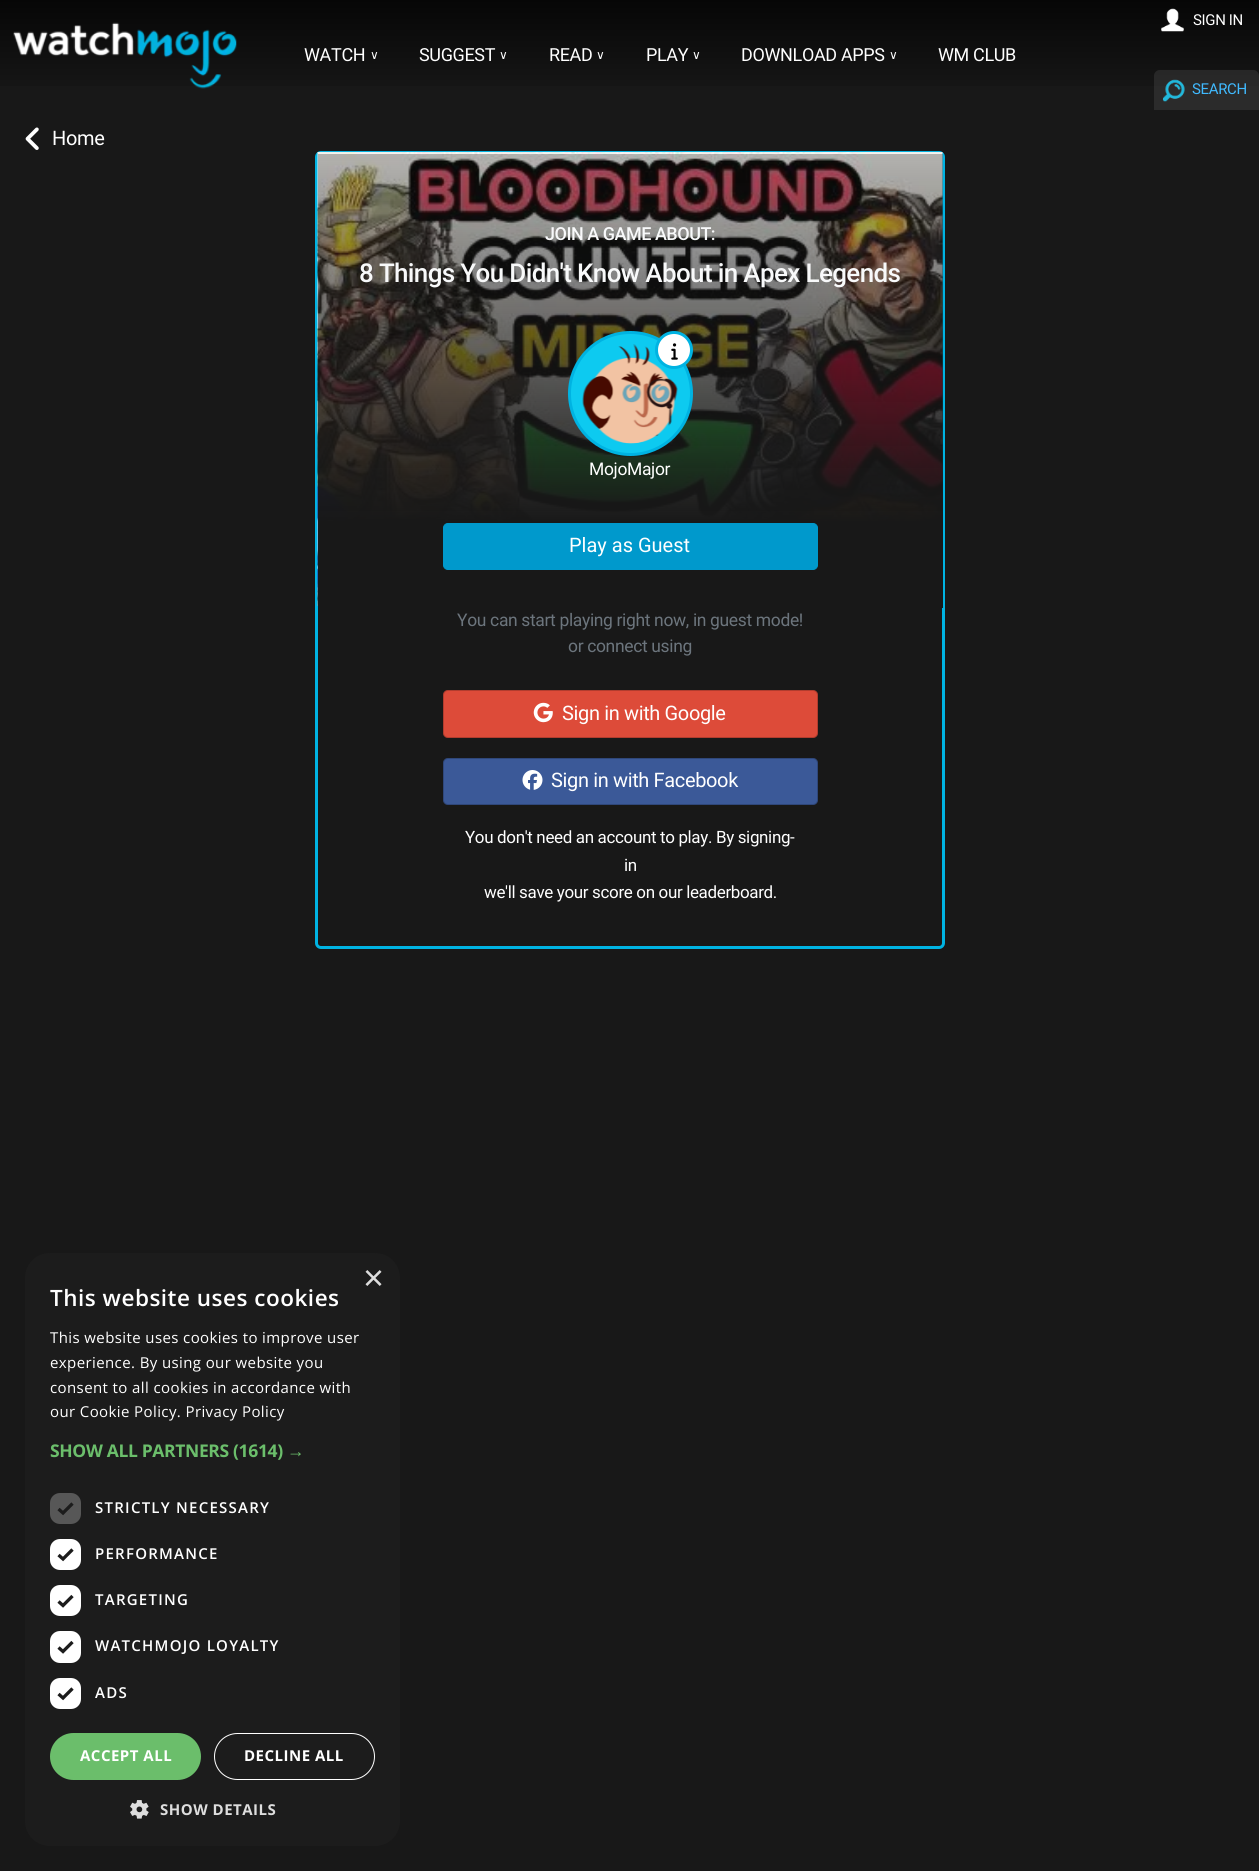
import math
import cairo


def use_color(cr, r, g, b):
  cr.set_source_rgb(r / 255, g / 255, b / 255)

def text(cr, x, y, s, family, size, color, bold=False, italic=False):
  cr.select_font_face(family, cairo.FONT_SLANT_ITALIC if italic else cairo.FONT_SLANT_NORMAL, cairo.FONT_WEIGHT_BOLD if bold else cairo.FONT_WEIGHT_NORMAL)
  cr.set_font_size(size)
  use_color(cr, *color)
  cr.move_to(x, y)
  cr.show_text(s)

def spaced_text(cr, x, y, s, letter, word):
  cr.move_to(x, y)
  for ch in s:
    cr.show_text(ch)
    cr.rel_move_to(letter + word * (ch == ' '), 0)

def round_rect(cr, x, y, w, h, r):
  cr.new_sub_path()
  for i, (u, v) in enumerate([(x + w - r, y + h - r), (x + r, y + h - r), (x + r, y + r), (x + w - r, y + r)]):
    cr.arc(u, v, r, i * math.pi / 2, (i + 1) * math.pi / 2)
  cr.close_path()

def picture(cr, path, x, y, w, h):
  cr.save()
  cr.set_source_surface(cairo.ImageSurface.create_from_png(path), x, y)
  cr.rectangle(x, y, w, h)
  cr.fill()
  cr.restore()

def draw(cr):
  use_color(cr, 24, 24, 24)
  cr.paint()
  gradient = cairo.LinearGradient(630, 0, 630, 111)
  gradient.add_color_stop_rgba(0, 0.024, 0.024, 0.024, 1)
  gradient.add_color_stop_rgba(1, 0.102, 0.102, 0.102, 1)
  cr.set_source(gradient)
  cr.rectangle(0, 0, 1259, 86)
  cr.fill()
  picture(cr, "img_01.png", 1161, 8, 23, 24)
  cr.set_source_rgba(0.608, 0.608, 0.608, 0.15)
  cr.new_path()
  cr.move_to(1160, 70)
  cr.line_to(1253, 70)
  cr.curve_to(1256.5, 70, 1259, 72.5, 1259, 76)
  cr.line_to(1259, 110)
  cr.line_to(1154, 110)
  cr.line_to(1154, 76)
  cr.curve_to(1154, 72.5, 1156.5, 70, 1160, 70)
  cr.close_path()
  cr.fill()
  picture(cr, "img_02.png", 1162, 79, 23, 23)
  picture(cr, "img_03.png", 25, 127, 14, 23)
  picture(cr, "img_04.png", 13, 22, 224, 67)
  round_rect(cr, 316.5, 152.5, 627, 795, 4.5)
  use_color(cr, 0, 179, 226)
  cr.set_line_width(3)
  cr.stroke()
  picture(cr, "img_05.png", 317, 152, 626, 454)
  gradient = cairo.LinearGradient(630, 608, 630, 154)
  gradient.add_color_stop_rgba(0.19, 0.094, 0.094, 0.094, 1)
  gradient.add_color_stop_rgba(1, 0.094, 0.094, 0.094, 0.3)
  cr.set_source(gradient)
  cr.rectangle(318, 154, 625, 454)
  cr.fill()
  use_color(cr, 13, 202, 240)
  cr.arc(630.5, 393.5, 61, 0, 2 * math.pi)
  cr.fill_preserve()
  use_color(cr, 0, 179, 226)
  cr.stroke()
  picture(cr, "img_06.png", 582, 344, 96, 100)
  use_color(cr, 255, 255, 255)
  cr.arc(674, 350, 17.5, 0, 2 * math.pi)
  cr.fill_preserve()
  use_color(cr, 0, 179, 226)
  cr.stroke()
  picture(cr, "img_07.png", 671, 343, 7, 17)
  use_color(cr, 0, 153, 204)
  round_rect(cr, 443.5, 523.5, 374, 46, 4.5)
  cr.fill_preserve()
  cr.set_line_width(1)
  cr.stroke()
  use_color(cr, 221, 75, 57)
  round_rect(cr, 443, 690, 375, 48, 5)
  cr.fill()
  round_rect(cr, 443.5, 690.5, 374, 47, 4.5)
  cr.set_source_rgba(0, 0, 0, 0.2)
  cr.stroke()
  picture(cr, "img_08.png", 533, 702, 20, 21)
  use_color(cr, 59, 89, 152)
  round_rect(cr, 443, 758, 375, 47, 5)
  cr.fill()
  round_rect(cr, 443.5, 758.5, 374, 46, 4.5)
  cr.set_source_rgba(0, 0, 0, 0.2)
  cr.stroke()
  picture(cr, "img_09.png", 522, 770, 21, 20)
  use_color(cr, 28, 28, 28)
  round_rect(cr, 25, 1253, 375, 593, 25)
  cr.fill()
  use_color(cr, 87, 87, 87)
  round_rect(cr, 50, 1493, 31, 31, 10)
  cr.fill()
  cr.new_path()
  cr.move_to(58.5, 1509)
  cr.line_to(63, 1513)
  cr.line_to(72.5, 1503.5)
  use_color(cr, 28, 28, 28)
  cr.set_line_width(3.3)
  cr.stroke()
  use_color(cr, 255, 255, 255)
  round_rect(cr, 51.5, 1540.5, 28, 28, 8.5)
  cr.fill_preserve()
  cr.set_line_width(3)
  cr.stroke()
  cr.new_path()
  cr.move_to(58.5, 1555)
  cr.line_to(63, 1559)
  cr.line_to(72.5, 1549.5)
  use_color(cr, 28, 28, 28)
  cr.set_line_width(3.3)
  cr.stroke()
  use_color(cr, 255, 255, 255)
  round_rect(cr, 51.5, 1586.5, 28, 28, 8.5)
  cr.fill_preserve()
  cr.set_line_width(3)
  cr.stroke()
  cr.new_path()
  cr.move_to(58.5, 1601.5)
  cr.line_to(63, 1605.5)
  cr.line_to(72.5, 1596)
  use_color(cr, 28, 28, 28)
  cr.set_line_width(3.3)
  cr.stroke()
  use_color(cr, 255, 255, 255)
  round_rect(cr, 51.5, 1632.5, 28, 29, 8.5)
  cr.fill_preserve()
  cr.set_line_width(3)
  cr.stroke()
  cr.new_path()
  cr.move_to(58.5, 1647.5)
  cr.line_to(63, 1651.5)
  cr.line_to(72.5, 1642)
  use_color(cr, 28, 28, 28)
  cr.set_line_width(3.3)
  cr.stroke()
  use_color(cr, 255, 255, 255)
  round_rect(cr, 51.5, 1679.5, 28, 28, 8.5)
  cr.fill_preserve()
  cr.set_line_width(3)
  cr.stroke()
  cr.new_path()
  cr.move_to(58.5, 1694)
  cr.line_to(63, 1698)
  cr.line_to(72.5, 1688.5)
  use_color(cr, 28, 28, 28)
  cr.set_line_width(3.3)
  cr.stroke()
  use_color(cr, 107, 190, 107)
  round_rect(cr, 50, 1733, 151, 47, 23.5)
  cr.fill()
  round_rect(cr, 214.5, 1733.5, 160, 46, 23)
  use_color(cr, 255, 255, 255)
  cr.set_line_width(1)
  cr.stroke()
  picture(cr, "img_10.png", 130, 1800, 19, 19)
  cr.select_font_face("Roboto")
  cr.set_font_size(18)
  spaced_text(cr, 304, 61, "WATCH", -0.35, 0)
  cr.select_font_face("DejaVu Sans")
  cr.set_font_size(12)
  spaced_text(cr, 370, 59, "∨", 8, 0)
  cr.select_font_face("Roboto")
  cr.set_font_size(18)
  spaced_text(cr, 419, 61, "SUGGEST", -0.35, 0)
  cr.select_font_face("DejaVu Sans")
  cr.set_font_size(12)
  spaced_text(cr, 499, 59, "∨", 8, 0)
  cr.select_font_face("Roboto")
  cr.set_font_size(18)
  spaced_text(cr, 549, 61, "READ", -0.35, 0)
  cr.select_font_face("DejaVu Sans")
  cr.set_font_size(12)
  spaced_text(cr, 596, 59, "∨", 8, 0)
  cr.select_font_face("Roboto")
  cr.set_font_size(18)
  spaced_text(cr, 646, 61, "PLAY", -0.35, 0)
  cr.select_font_face("DejaVu Sans")
  cr.set_font_size(12)
  spaced_text(cr, 692, 59, "∨", 8, 0)
  cr.select_font_face("Roboto")
  cr.set_font_size(18)
  spaced_text(cr, 741, 61, "DOWNLOAD APPS", -0.35, 0)
  cr.select_font_face("DejaVu Sans")
  cr.set_font_size(12)
  spaced_text(cr, 889, 59, "∨", 8, 0)
  cr.select_font_face("Roboto")
  cr.set_font_size(18)
  spaced_text(cr, 938, 61, "WM CLUB", -0.35, 0)
  cr.set_font_size(15)
  spaced_text(cr, 1193, 25, "SIGN IN", -0.35, 0)
  use_color(cr, 64, 186, 255)
  spaced_text(cr, 1192, 94, "SEARCH", -0.35, 0)
  cr.set_font_size(20)
  use_color(cr, 255, 255, 255)
  spaced_text(cr, 52, 145, "Home", -0.35, 0)
  cr.select_font_face("Roboto Medium")
  cr.set_font_size(18)
  use_color(cr, 248, 249, 250)
  spaced_text(cr, 545, 240, "JOIN A GAME ABOUT:", -0.5, 0)
  cr.set_font_size(26)
  spaced_text(cr, 359, 282, "8 Things You Didn't Know About in Apex Legends", -0.65, 0)
  cr.select_font_face("Roboto")
  cr.set_font_size(17.5)
  use_color(cr, 255, 255, 255)
  spaced_text(cr, 589, 475, "MojoMajor", -0.35, 0)
  text(cr, 569, 552, "Play as Guest", "Roboto", 20, (255, 255, 255))
  cr.set_font_size(17.5)
  use_color(cr, 108, 117, 125)
  spaced_text(cr, 457, 626, "You can start playing right now, in guest mode!", -0.35, 0)
  spaced_text(cr, 568, 652, "or connect using", -0.35, 0)
  cr.set_font_size(20)
  use_color(cr, 255, 255, 255)
  spaced_text(cr, 562, 720, "Sign in with Google", -0.35, 0)
  spaced_text(cr, 551, 787, "Sign in with Facebook", -0.35, 0)
  cr.set_font_size(17)
  spaced_text(cr, 465, 843, "You don't need an account to play. By signing-", -0.35, 0)
  spaced_text(cr, 624, 871, "in", -0.35, 0)
  spaced_text(cr, 484, 898, "we'll save your score on our leaderboard.", -0.35, 0)
  text(cr, 363, 1290, "×", "Liberation Sans", 36, (221, 221, 221))
  cr.select_font_face("Open Sans SemiBold")
  cr.set_font_size(22.5)
  use_color(cr, 255, 255, 255)
  spaced_text(cr, 50, 1306, "This website uses cookies", 0.5, 0)
  cr.select_font_face("Open Sans")
  cr.set_font_size(15)
  spaced_text(cr, 50, 1343, "This website uses cookies to improve user", 0.4, 0)
  spaced_text(cr, 50, 1368, "experience. By using our website you", 0.4, 0)
  spaced_text(cr, 50, 1393, "consent to all cookies in accordance with", 0.4, 0)
  spaced_text(cr, 50, 1417, "our Cookie Policy. Privacy Policy", 0.4, 0)
  cr.select_font_face("Open Sans", cairo.FONT_SLANT_NORMAL, cairo.FONT_WEIGHT_BOLD)
  cr.set_font_size(17.5)
  use_color(cr, 107, 190, 107)
  spaced_text(cr, 50, 1457, "SHOW ALL PARTNERS (1614)", -0.35, 0)
  cr.select_font_face("Liberation Sans", cairo.FONT_SLANT_NORMAL, cairo.FONT_WEIGHT_BOLD)
  spaced_text(cr, 287, 1457, "→", -0.35, 0)
  cr.select_font_face("Open Sans SemiBold")
  cr.set_font_size(15)
  use_color(cr, 255, 255, 255)
  spaced_text(cr, 95, 1513, "STRICTLY NECESSARY", 1.25, 0)
  spaced_text(cr, 95, 1559, "PERFORMANCE", 1.25, 0)
  spaced_text(cr, 95, 1605, "TARGETING", 1.25, 0)
  spaced_text(cr, 95, 1651, "WATCHMOJO LOYALTY", 1.25, 0)
  spaced_text(cr, 95, 1698, "ADS", 1.25, 0)
  cr.select_font_face("Open Sans", cairo.FONT_SLANT_NORMAL, cairo.FONT_WEIGHT_BOLD)
  spaced_text(cr, 80, 1761, "ACCEPT ALL", 0.5, 0)
  spaced_text(cr, 244, 1761, "DECLINE ALL", 0.5, 0)
  use_color(cr, 221, 221, 221)
  spaced_text(cr, 160, 1815, "SHOW DETAILS", 0.5, 0)


surface = cairo.ImageSurface(cairo.FORMAT_RGB24, 1259, 1871)
cr = cairo.Context(surface)
options = cairo.FontOptions()
options.set_hint_metrics(cairo.HINT_METRICS_OFF)
options.set_hint_style(cairo.HINT_STYLE_NONE)
cr.set_font_options(options)
cr.set_miter_limit(4)
draw(cr)
surface.write_to_png("out.png")
